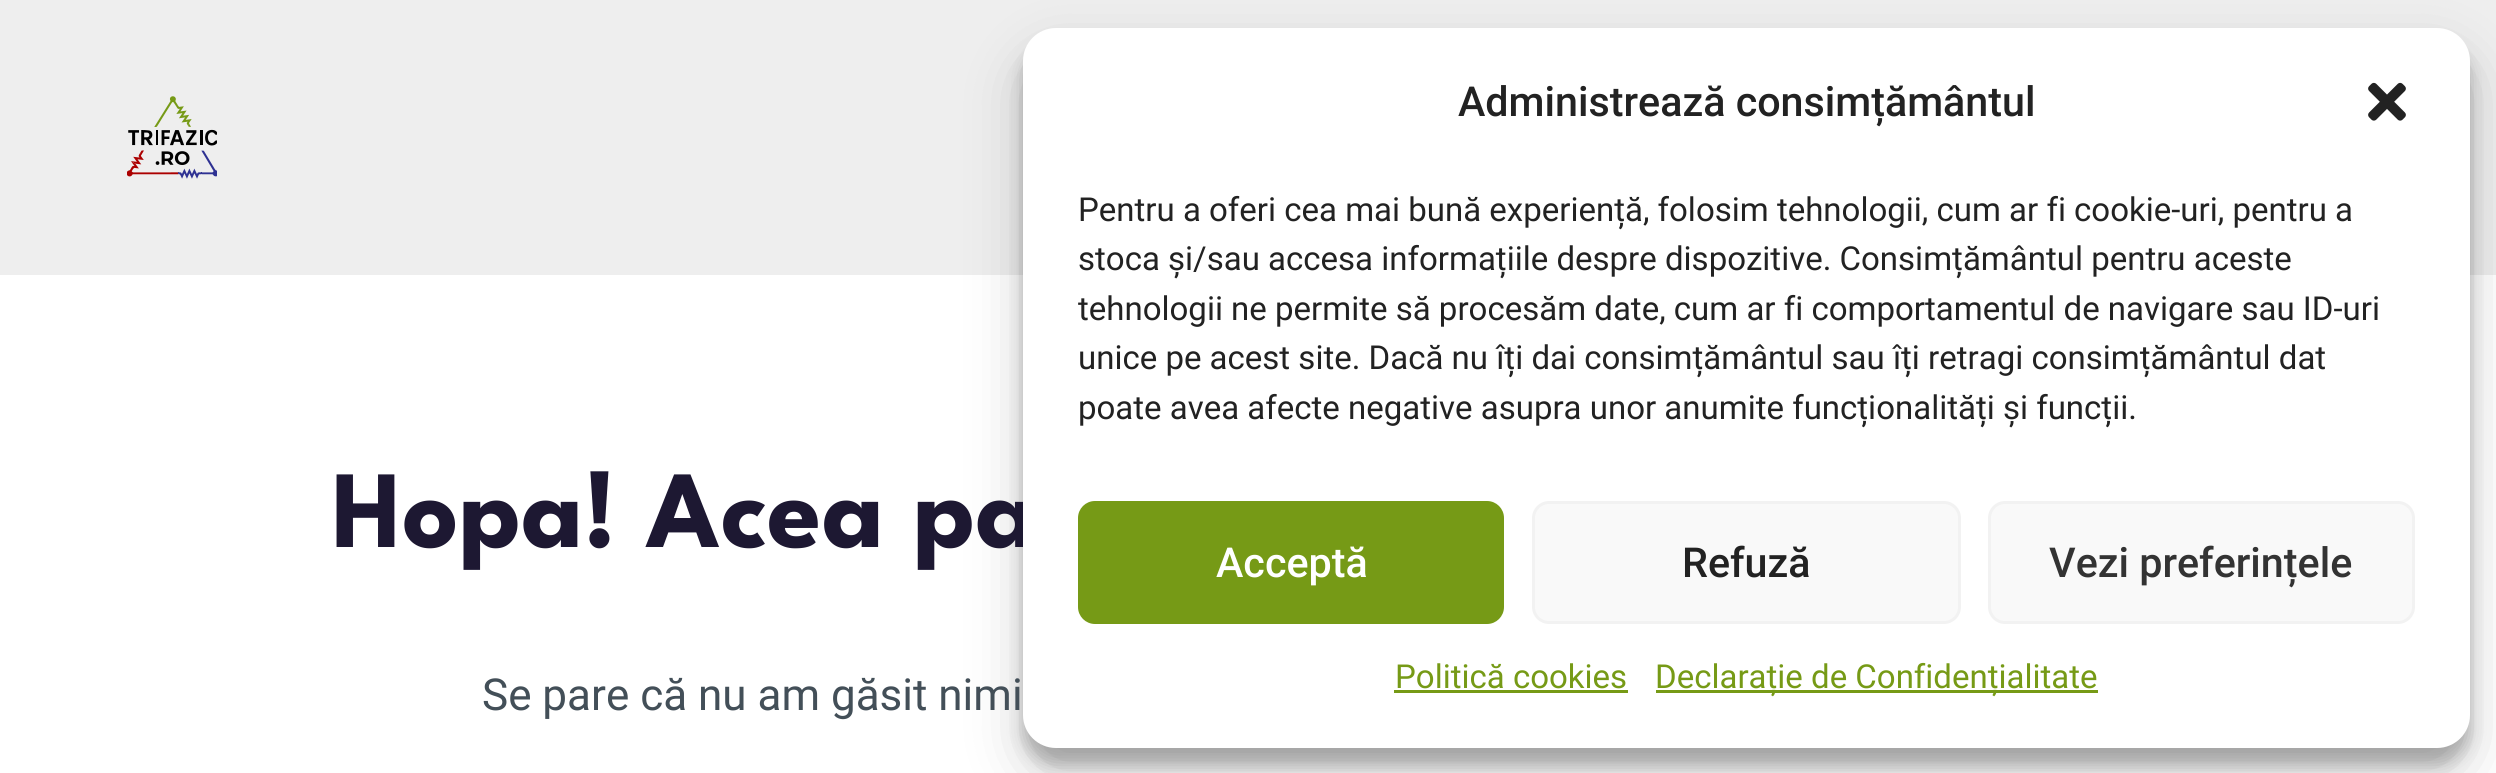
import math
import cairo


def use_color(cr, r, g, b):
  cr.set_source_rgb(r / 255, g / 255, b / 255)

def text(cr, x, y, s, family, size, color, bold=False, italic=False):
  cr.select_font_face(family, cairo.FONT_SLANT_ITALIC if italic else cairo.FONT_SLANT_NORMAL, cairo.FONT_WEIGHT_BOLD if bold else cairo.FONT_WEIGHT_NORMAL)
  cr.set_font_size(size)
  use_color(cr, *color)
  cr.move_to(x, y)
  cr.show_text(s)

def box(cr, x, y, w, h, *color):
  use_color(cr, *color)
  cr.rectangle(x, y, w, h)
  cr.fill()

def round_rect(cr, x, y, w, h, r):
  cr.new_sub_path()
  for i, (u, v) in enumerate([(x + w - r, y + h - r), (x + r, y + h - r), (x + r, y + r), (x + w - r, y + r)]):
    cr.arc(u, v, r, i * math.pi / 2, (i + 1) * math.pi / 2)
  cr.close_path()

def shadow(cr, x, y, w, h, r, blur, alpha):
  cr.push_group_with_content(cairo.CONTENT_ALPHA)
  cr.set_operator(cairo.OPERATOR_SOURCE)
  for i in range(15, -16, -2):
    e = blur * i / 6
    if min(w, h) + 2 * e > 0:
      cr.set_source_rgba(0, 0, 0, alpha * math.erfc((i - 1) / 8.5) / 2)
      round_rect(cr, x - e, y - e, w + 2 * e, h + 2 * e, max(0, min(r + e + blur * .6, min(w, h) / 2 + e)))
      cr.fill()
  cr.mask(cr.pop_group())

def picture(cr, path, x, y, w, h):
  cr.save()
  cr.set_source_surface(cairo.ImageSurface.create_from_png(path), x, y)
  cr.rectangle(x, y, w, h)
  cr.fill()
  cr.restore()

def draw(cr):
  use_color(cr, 255, 255, 255)
  cr.paint()
  box(cr, 0, 0, 2496, 275, 238, 238, 238)
  picture(cr, "img_01.png", 127, 96, 90, 83)
  use_color(cr, 0, 0, 0)
  shadow(cr, 1023, 44, 1447, 721, 33, 8, 0.23)
  shadow(cr, 1023, 55, 1447, 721, 33, 27.5, 0.19)
  text(cr, 332, 547, "Hopa! Acea pa", "League Spartan", 110, (29, 24, 50), bold=True)
  text(cr, 482, 710, "Se pare că nu am găsit nimi", "Roboto", 44, (67, 79, 88))
  use_color(cr, 255, 255, 255)
  round_rect(cr, 1023, 28, 1447, 720, 33)
  cr.fill()
  text(cr, 1458, 116, "Administrează consimțământul", "Roboto Medium", 41.25, (34, 34, 34))
  picture(cr, "img_02.png", 2368, 82, 38, 39)
  text(cr, 1078, 221, "Pentru a oferi cea mai bună experiență, folosim tehnologii, cum ar fi cookie-uri, pentru a", "Roboto", 33, (34, 34, 34))
  text(cr, 1078, 270, "stoca și/sau accesa informațiile despre dispozitive. Consimțământul pentru aceste", "Roboto", 33, (34, 34, 34))
  text(cr, 1078, 320, "tehnologii ne permite să procesăm date, cum ar fi comportamentul de navigare sau ID-uri", "Roboto", 33, (34, 34, 34))
  text(cr, 1078, 369, "unice pe acest site. Dacă nu îți dai consimțământul sau îți retragi consimțământul dat", "Roboto", 33, (34, 34, 34))
  text(cr, 1078, 419, "poate avea afecte negative asupra unor anumite funcționalități și funcții.", "Roboto", 33, (34, 34, 34))
  use_color(cr, 118, 154, 22)
  round_rect(cr, 1079.5, 502.5, 423, 120, 15.5)
  cr.fill_preserve()
  cr.set_line_width(3)
  cr.stroke()
  text(cr, 1216, 577, "Acceptă", "Roboto Medium", 41.25, (255, 255, 255))
  use_color(cr, 249, 249, 249)
  round_rect(cr, 1533.5, 502.5, 426, 120, 15.5)
  cr.fill_preserve()
  use_color(cr, 242, 242, 242)
  cr.stroke()
  text(cr, 1682, 577, "Refuză", "Roboto Medium", 41.25, (34, 34, 34))
  use_color(cr, 249, 249, 249)
  round_rect(cr, 1989.5, 502.5, 424, 120, 15.5)
  cr.fill_preserve()
  use_color(cr, 242, 242, 242)
  cr.stroke()
  text(cr, 2049, 577, "Vezi preferințele", "Roboto Medium", 41.25, (51, 51, 51))
  text(cr, 1395, 688, "Politică cookies", "Roboto", 33, (118, 154, 22))
  box(cr, 1394, 690, 234, 3, 118, 154, 22)
  box(cr, 1656, 690, 442, 3, 118, 154, 22)
  text(cr, 1655, 688, "Declarație de Confidențialitate", "Roboto", 33, (118, 154, 22))


surface = cairo.ImageSurface(cairo.FORMAT_RGB24, 2496, 773)
cr = cairo.Context(surface)
options = cairo.FontOptions()
options.set_hint_metrics(cairo.HINT_METRICS_OFF)
options.set_hint_style(cairo.HINT_STYLE_NONE)
cr.set_font_options(options)
cr.set_miter_limit(4)
draw(cr)
surface.write_to_png("out.png")
